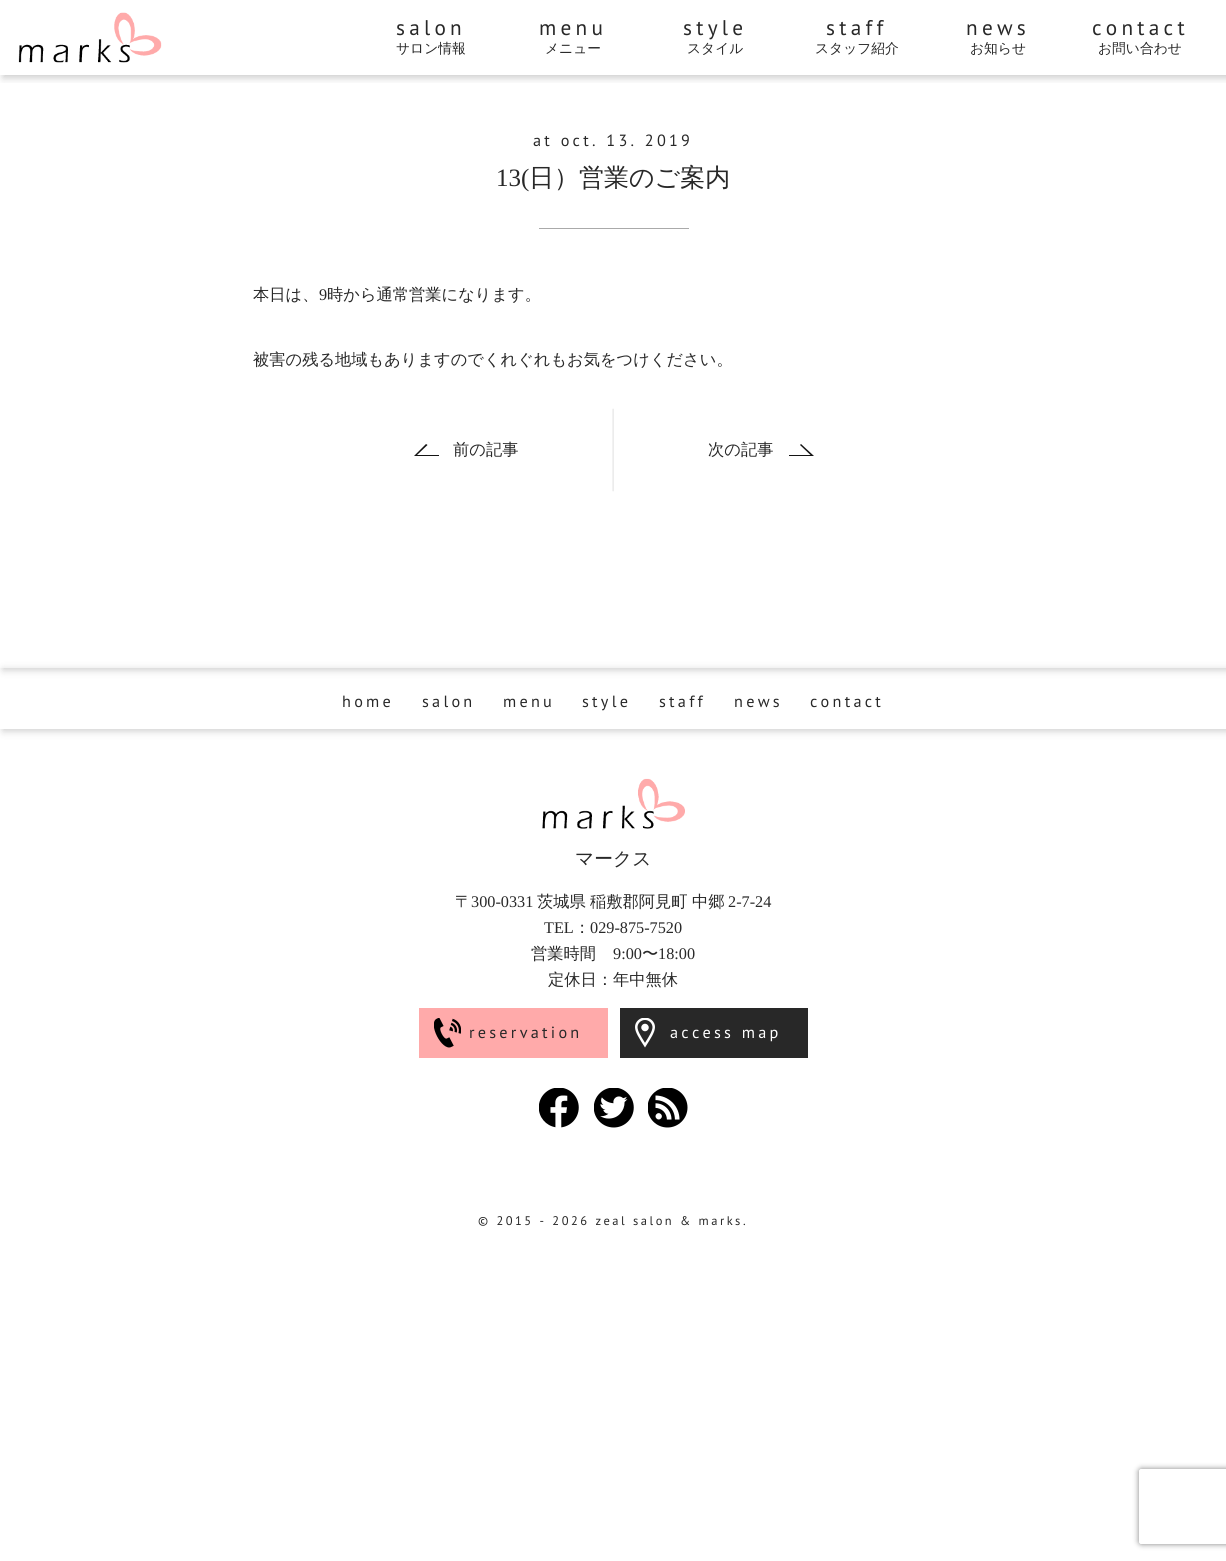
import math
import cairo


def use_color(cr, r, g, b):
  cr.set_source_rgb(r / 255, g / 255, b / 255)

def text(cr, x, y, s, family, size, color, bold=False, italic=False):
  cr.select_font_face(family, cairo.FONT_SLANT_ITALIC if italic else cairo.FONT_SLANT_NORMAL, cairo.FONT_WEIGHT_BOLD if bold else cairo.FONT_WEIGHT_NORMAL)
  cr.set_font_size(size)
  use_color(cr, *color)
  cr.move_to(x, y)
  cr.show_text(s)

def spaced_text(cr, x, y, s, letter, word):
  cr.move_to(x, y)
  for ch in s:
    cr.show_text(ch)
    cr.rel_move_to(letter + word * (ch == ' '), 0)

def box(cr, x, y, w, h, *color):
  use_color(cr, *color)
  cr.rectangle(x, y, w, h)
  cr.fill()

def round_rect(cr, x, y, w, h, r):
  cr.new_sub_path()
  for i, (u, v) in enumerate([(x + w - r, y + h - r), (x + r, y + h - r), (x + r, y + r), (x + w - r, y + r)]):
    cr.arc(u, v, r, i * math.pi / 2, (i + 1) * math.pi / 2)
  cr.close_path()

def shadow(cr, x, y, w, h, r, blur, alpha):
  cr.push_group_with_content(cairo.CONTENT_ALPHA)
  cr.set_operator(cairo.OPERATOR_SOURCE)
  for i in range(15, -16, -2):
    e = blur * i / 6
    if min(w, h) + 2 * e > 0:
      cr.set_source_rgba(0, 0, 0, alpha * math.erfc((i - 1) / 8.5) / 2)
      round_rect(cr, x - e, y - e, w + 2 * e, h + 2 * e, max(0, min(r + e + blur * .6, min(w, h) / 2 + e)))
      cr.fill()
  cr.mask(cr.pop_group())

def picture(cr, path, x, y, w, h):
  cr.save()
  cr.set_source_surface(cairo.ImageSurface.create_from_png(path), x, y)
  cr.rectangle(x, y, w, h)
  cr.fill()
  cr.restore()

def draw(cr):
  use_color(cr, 255, 255, 255)
  cr.paint()
  cr.save()
  cr.rectangle(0, 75, 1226, 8)
  cr.clip()
  use_color(cr, 0, 0, 0)
  shadow(cr, 3, 3, 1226, 75, 0, 4, 0.2)
  cr.restore()
  cr.save()
  cr.set_fill_rule(cairo.FILL_RULE_EVEN_ODD)
  cr.new_path()
  cr.move_to(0, 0)
  cr.line_to(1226, 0)
  cr.line_to(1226, 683)
  cr.line_to(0, 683)
  cr.close_path()
  cr.move_to(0, 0)
  cr.line_to(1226, 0)
  cr.line_to(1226, 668)
  cr.line_to(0, 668)
  cr.close_path()
  cr.clip()
  use_color(cr, 0, 0, 0)
  shadow(cr, 3, 3, 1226, 667, 0, 4, 0.2)
  cr.restore()
  picture(cr, "img_01.png", 18, 12, 144, 51)
  box(cr, 539, 228, 150, 1, 170, 170, 170)
  picture(cr, "img_02.png", 612, 408, 2, 84)
  use_color(cr, 20, 20, 20)
  cr.new_path()
  cr.move_to(426, 444)
  cr.line_to(427.5, 445)
  cr.line_to(417, 455)
  cr.line_to(439, 455)
  cr.line_to(439, 456)
  cr.line_to(414, 456)
  cr.close_path()
  cr.fill()
  cr.new_path()
  cr.move_to(801, 444)
  cr.line_to(800, 445)
  cr.line_to(810.5, 455)
  cr.line_to(789, 455)
  cr.line_to(789, 456)
  cr.line_to(814, 456)
  cr.close_path()
  cr.fill()
  cr.save()
  cr.set_fill_rule(cairo.FILL_RULE_EVEN_ODD)
  cr.new_path()
  cr.move_to(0, 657)
  cr.line_to(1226, 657)
  cr.line_to(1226, 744)
  cr.line_to(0, 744)
  cr.close_path()
  cr.move_to(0, 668)
  cr.line_to(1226, 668)
  cr.line_to(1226, 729)
  cr.line_to(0, 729)
  cr.close_path()
  cr.clip()
  use_color(cr, 0, 0, 0)
  shadow(cr, 3, 670, 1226, 61, 0, 4, 0.2)
  cr.restore()
  picture(cr, "img_03.png", 542, 778, 143, 51)
  box(cr, 419, 1008, 189, 50, 255, 170, 170)
  picture(cr, "img_04.png", 434, 1018, 27, 30)
  box(cr, 620, 1008, 188, 50, 40, 40, 40)
  picture(cr, "img_05.png", 635, 1018, 20, 30)
  picture(cr, "img_06.png", 539, 1088, 40, 40)
  picture(cr, "img_07.png", 594, 1088, 40, 40)
  picture(cr, "img_08.png", 648, 1088, 40, 40)
  cr.save()
  cr.set_fill_rule(cairo.FILL_RULE_EVEN_ODD)
  cr.new_path()
  cr.move_to(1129, 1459)
  cr.line_to(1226, 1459)
  cr.line_to(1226, 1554)
  cr.line_to(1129, 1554)
  cr.close_path()
  cr.move_to(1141.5, 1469)
  cr.line_to(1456.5, 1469)
  cr.curve_to(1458, 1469, 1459, 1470, 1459, 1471.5)
  cr.line_to(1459, 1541.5)
  cr.curve_to(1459, 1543, 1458, 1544, 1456.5, 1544)
  cr.line_to(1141.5, 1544)
  cr.curve_to(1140, 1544, 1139, 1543, 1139, 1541.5)
  cr.line_to(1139, 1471.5)
  cr.curve_to(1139, 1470, 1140, 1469, 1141.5, 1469)
  cr.close_path()
  cr.clip()
  use_color(cr, 128, 128, 128)
  shadow(cr, 1139, 1469, 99, 75, 2.5, 3, 1)
  cr.restore()
  cr.select_font_face("PT Sans")
  cr.set_font_size(21.25)
  spaced_text(cr, 396, 35, "salon", 4.25, 0)
  text(cr, 396, 53, "サロン情報", "WenQuanYi Zen Hei Medium", 13.75, (40, 40, 40))
  cr.select_font_face("PT Sans")
  cr.set_font_size(21.25)
  spaced_text(cr, 539, 35, "menu", 4.25, 0)
  text(cr, 545, 53, "メニュー", "WenQuanYi Zen Hei Medium", 13.75, (40, 40, 40))
  cr.select_font_face("PT Sans")
  cr.set_font_size(21.25)
  spaced_text(cr, 683, 35, "style", 4.25, 0)
  text(cr, 687, 53, "スタイル", "WenQuanYi Zen Hei Medium", 13.75, (40, 40, 40))
  cr.select_font_face("PT Sans")
  cr.set_font_size(21.25)
  spaced_text(cr, 826, 35, "staff", 4.25, 0)
  text(cr, 815, 53, "スタッフ紹介", "WenQuanYi Zen Hei Medium", 13.75, (40, 40, 40))
  cr.select_font_face("PT Sans")
  cr.set_font_size(21.25)
  spaced_text(cr, 966, 35, "news", 4.25, 0)
  text(cr, 970, 53, "お知らせ", "WenQuanYi Zen Hei Medium", 13.75, (40, 40, 40))
  cr.select_font_face("PT Sans")
  cr.set_font_size(21.25)
  spaced_text(cr, 1092, 35, "contact", 4.25, 0)
  text(cr, 1098, 53, "お問い合わせ", "WenQuanYi Zen Hei Medium", 13.75, (40, 40, 40))
  cr.select_font_face("PT Sans")
  cr.set_font_size(16.25)
  spaced_text(cr, 533, 146, "at oct. 13. 2019", 3.25, 0)
  text(cr, 496, 186, "13(", "Liberation Serif", 25, (40, 40, 40))
  text(cr, 529, 186, "日）営業のご案内", "WenQuanYi Zen Hei Medium", 25, (40, 40, 40))
  text(cr, 253, 300, "本日は、", "WenQuanYi Zen Hei Medium", 16.25, (40, 40, 40))
  text(cr, 319, 300, "9", "Liberation Serif", 16.25, (40, 40, 40))
  text(cr, 327, 300, "時から通常営業になります。", "WenQuanYi Zen Hei Medium", 16.25, (40, 40, 40))
  text(cr, 253, 365, "被害の残る地域もありますのでくれぐれもお気をつけください。", "WenQuanYi Zen Hei Medium", 16.25, (40, 40, 40))
  text(cr, 453, 455, "前の記事", "WenQuanYi Zen Hei Medium", 16.25, (40, 40, 40))
  text(cr, 708, 455, "次の記事", "WenQuanYi Zen Hei Medium", 16.25, (40, 40, 40))
  cr.select_font_face("PT Sans")
  spaced_text(cr, 342, 707, "home", 3.25, 0)
  spaced_text(cr, 422, 707, "salon", 3.25, 0)
  spaced_text(cr, 503, 707, "menu", 3.25, 0)
  spaced_text(cr, 582, 707, "style", 3.25, 0)
  spaced_text(cr, 659, 707, "staff", 3.25, 0)
  spaced_text(cr, 734, 707, "news", 3.25, 0)
  spaced_text(cr, 810, 707, "contact", 3.25, 0)
  text(cr, 575, 865, "マークス", "WenQuanYi Zen Hei Medium", 18.75, (40, 40, 40))
  text(cr, 455, 907, "〒", "WenQuanYi Zen Hei Medium", 16.25, (40, 40, 40))
  text(cr, 471, 907, "300-0331", "Liberation Serif", 16.25, (40, 40, 40))
  text(cr, 537, 907, "茨城県", "WenQuanYi Zen Hei Medium", 16.25, (40, 40, 40))
  text(cr, 590, 907, "稲敷郡阿見町", "WenQuanYi Zen Hei Medium", 16.25, (40, 40, 40))
  text(cr, 692, 907, "中郷", "WenQuanYi Zen Hei Medium", 16.25, (40, 40, 40))
  text(cr, 728, 907, "2-7-24", "Liberation Serif", 16.25, (40, 40, 40))
  text(cr, 544, 933, "TEL", "Liberation Serif", 16.25, (40, 40, 40))
  text(cr, 574, 933, "：", "WenQuanYi Zen Hei Medium", 16.25, (40, 40, 40))
  text(cr, 590, 933, "029-875-7520", "Liberation Serif", 16.25, (40, 40, 40))
  text(cr, 531, 959, "営業時間", "WenQuanYi Zen Hei Medium", 16.25, (40, 40, 40))
  text(cr, 613, 959, "9:00", "Liberation Serif", 16.25, (40, 40, 40))
  text(cr, 642, 959, "〜", "WenQuanYi Zen Hei Medium", 16.25, (40, 40, 40))
  text(cr, 658, 959, "18:00", "Liberation Serif", 16.25, (40, 40, 40))
  text(cr, 548, 985, "定休日：年中無休", "WenQuanYi Zen Hei Medium", 16.25, (40, 40, 40))
  cr.select_font_face("PT Sans")
  spaced_text(cr, 469, 1038, "reservation", 3.25, 0)
  use_color(cr, 255, 255, 255)
  spaced_text(cr, 670, 1038, "access map", 3.25, 0)
  cr.set_font_size(12.5)
  use_color(cr, 40, 40, 40)
  spaced_text(cr, 478, 1225, "© 2015 - 2026 zeal salon & marks.", 2.5, 0)


surface = cairo.ImageSurface(cairo.FORMAT_RGB24, 1226, 1561)
cr = cairo.Context(surface)
options = cairo.FontOptions()
options.set_hint_metrics(cairo.HINT_METRICS_OFF)
options.set_hint_style(cairo.HINT_STYLE_NONE)
cr.set_font_options(options)
cr.set_miter_limit(4)
draw(cr)
surface.write_to_png("out.png")
